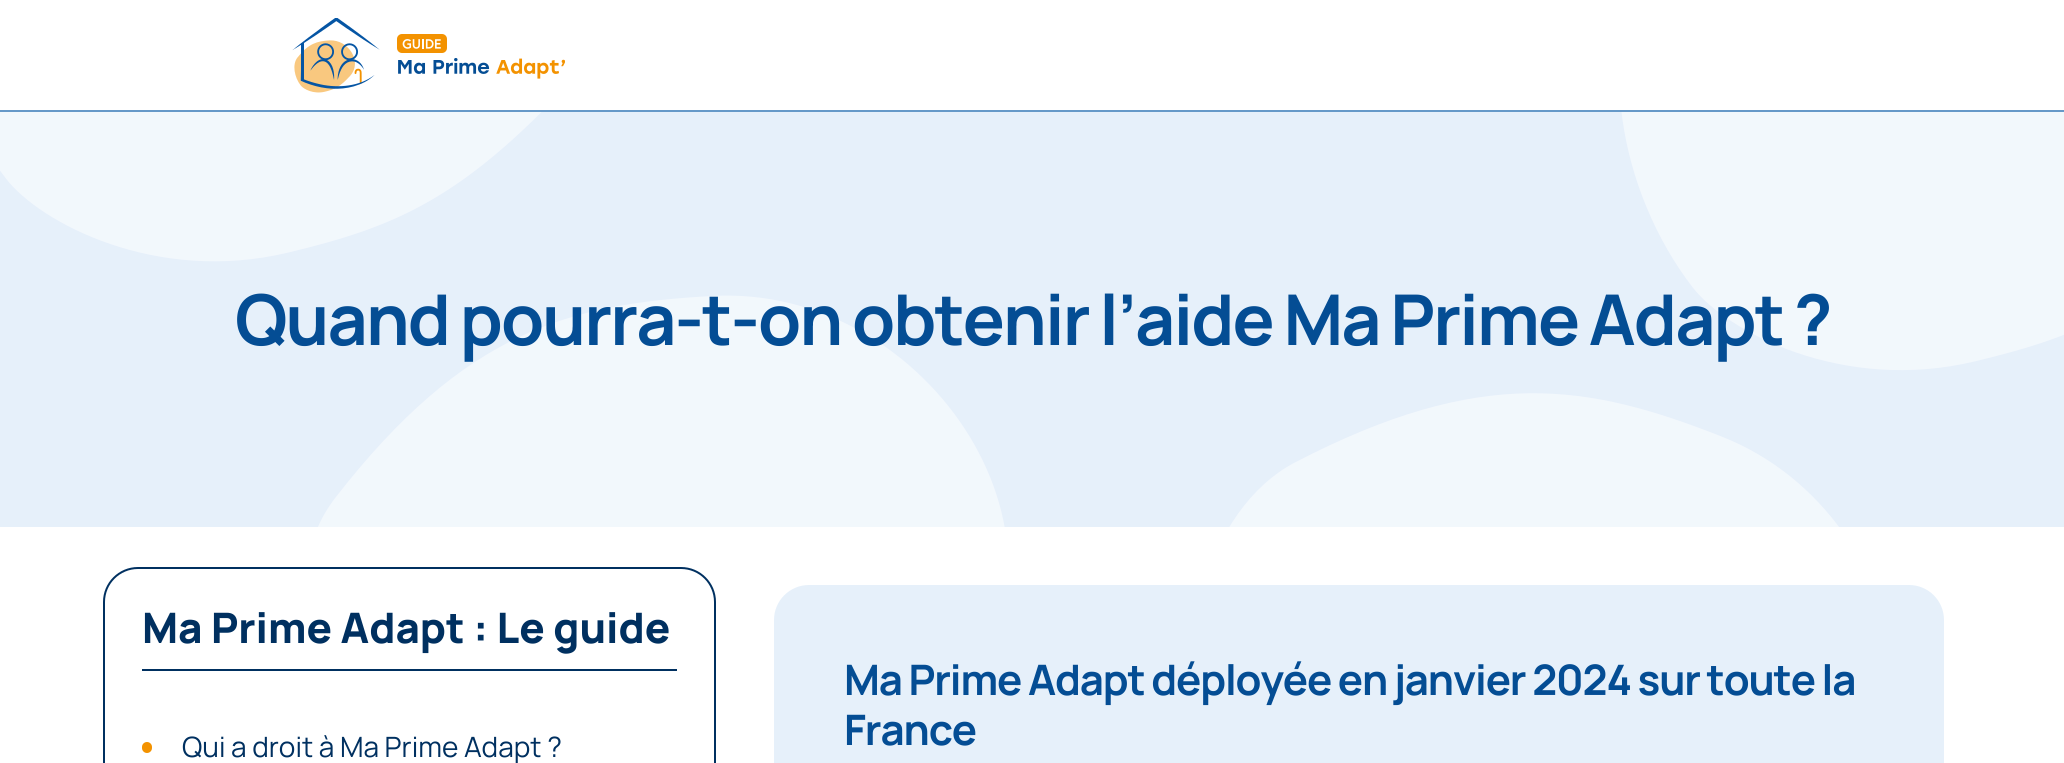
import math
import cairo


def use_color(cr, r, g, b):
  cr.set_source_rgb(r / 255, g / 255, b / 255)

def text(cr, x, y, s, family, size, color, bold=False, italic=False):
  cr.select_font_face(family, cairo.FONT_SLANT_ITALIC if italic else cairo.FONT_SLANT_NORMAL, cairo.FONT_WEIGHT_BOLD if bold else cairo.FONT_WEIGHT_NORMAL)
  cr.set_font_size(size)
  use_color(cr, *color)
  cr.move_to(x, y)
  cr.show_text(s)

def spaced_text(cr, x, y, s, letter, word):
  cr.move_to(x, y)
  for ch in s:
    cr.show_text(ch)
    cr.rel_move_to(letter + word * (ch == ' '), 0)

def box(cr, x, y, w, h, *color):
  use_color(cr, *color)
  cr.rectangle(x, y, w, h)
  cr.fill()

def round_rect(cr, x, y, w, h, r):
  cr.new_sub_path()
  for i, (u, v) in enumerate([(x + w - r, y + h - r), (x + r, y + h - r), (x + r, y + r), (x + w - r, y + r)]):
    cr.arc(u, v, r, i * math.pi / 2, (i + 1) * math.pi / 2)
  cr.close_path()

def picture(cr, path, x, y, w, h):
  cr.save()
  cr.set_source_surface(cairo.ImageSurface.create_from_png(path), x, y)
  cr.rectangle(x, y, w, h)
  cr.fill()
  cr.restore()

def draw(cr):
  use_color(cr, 255, 255, 255)
  cr.paint()
  picture(cr, "img_01.png", 292, 18, 273, 75)
  box(cr, 0, 110, 2064, 2, 102, 153, 200)
  picture(cr, "img_02.png", 0, 112, 2064, 415)
  round_rect(cr, 104, 568, 611, 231, 34)
  use_color(cr, 0, 48, 96)
  cr.stroke()
  box(cr, 142, 669, 535, 2, 0, 48, 96)
  use_color(cr, 243, 146, 0)
  round_rect(cr, 142, 742, 10, 11, 5)
  cr.fill()
  use_color(cr, 230, 240, 250)
  round_rect(cr, 774, 585, 1170, 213, 35)
  cr.fill()
  cr.select_font_face("Manrope", cairo.FONT_SLANT_NORMAL, cairo.FONT_WEIGHT_BOLD)
  cr.set_font_size(70)
  use_color(cr, 4, 77, 148)
  spaced_text(cr, 235, 345, "Quand pourra-t-on obtenir l’aide Ma Prime Adapt ?", -1.9, -1.5)
  text(cr, 142, 643, "Ma Prime Adapt : Le guide", "Manrope ExtraBold", 42, (0, 48, 96))
  text(cr, 182, 757, "Qui a droit à Ma Prime Adapt ?", "Manrope", 28, (0, 48, 96))
  cr.select_font_face("Manrope", cairo.FONT_SLANT_NORMAL, cairo.FONT_WEIGHT_BOLD)
  cr.set_font_size(42)
  use_color(cr, 4, 77, 148)
  spaced_text(cr, 844, 695, "Ma Prime Adapt déployée en janvier 2024 sur toute la", -1.13, -0.6)
  spaced_text(cr, 844, 745, "France", -1.13, 0)


surface = cairo.ImageSurface(cairo.FORMAT_RGB24, 2064, 763)
cr = cairo.Context(surface)
options = cairo.FontOptions()
options.set_hint_metrics(cairo.HINT_METRICS_OFF)
options.set_hint_style(cairo.HINT_STYLE_NONE)
cr.set_font_options(options)
cr.set_miter_limit(4)
draw(cr)
surface.write_to_png("out.png")
